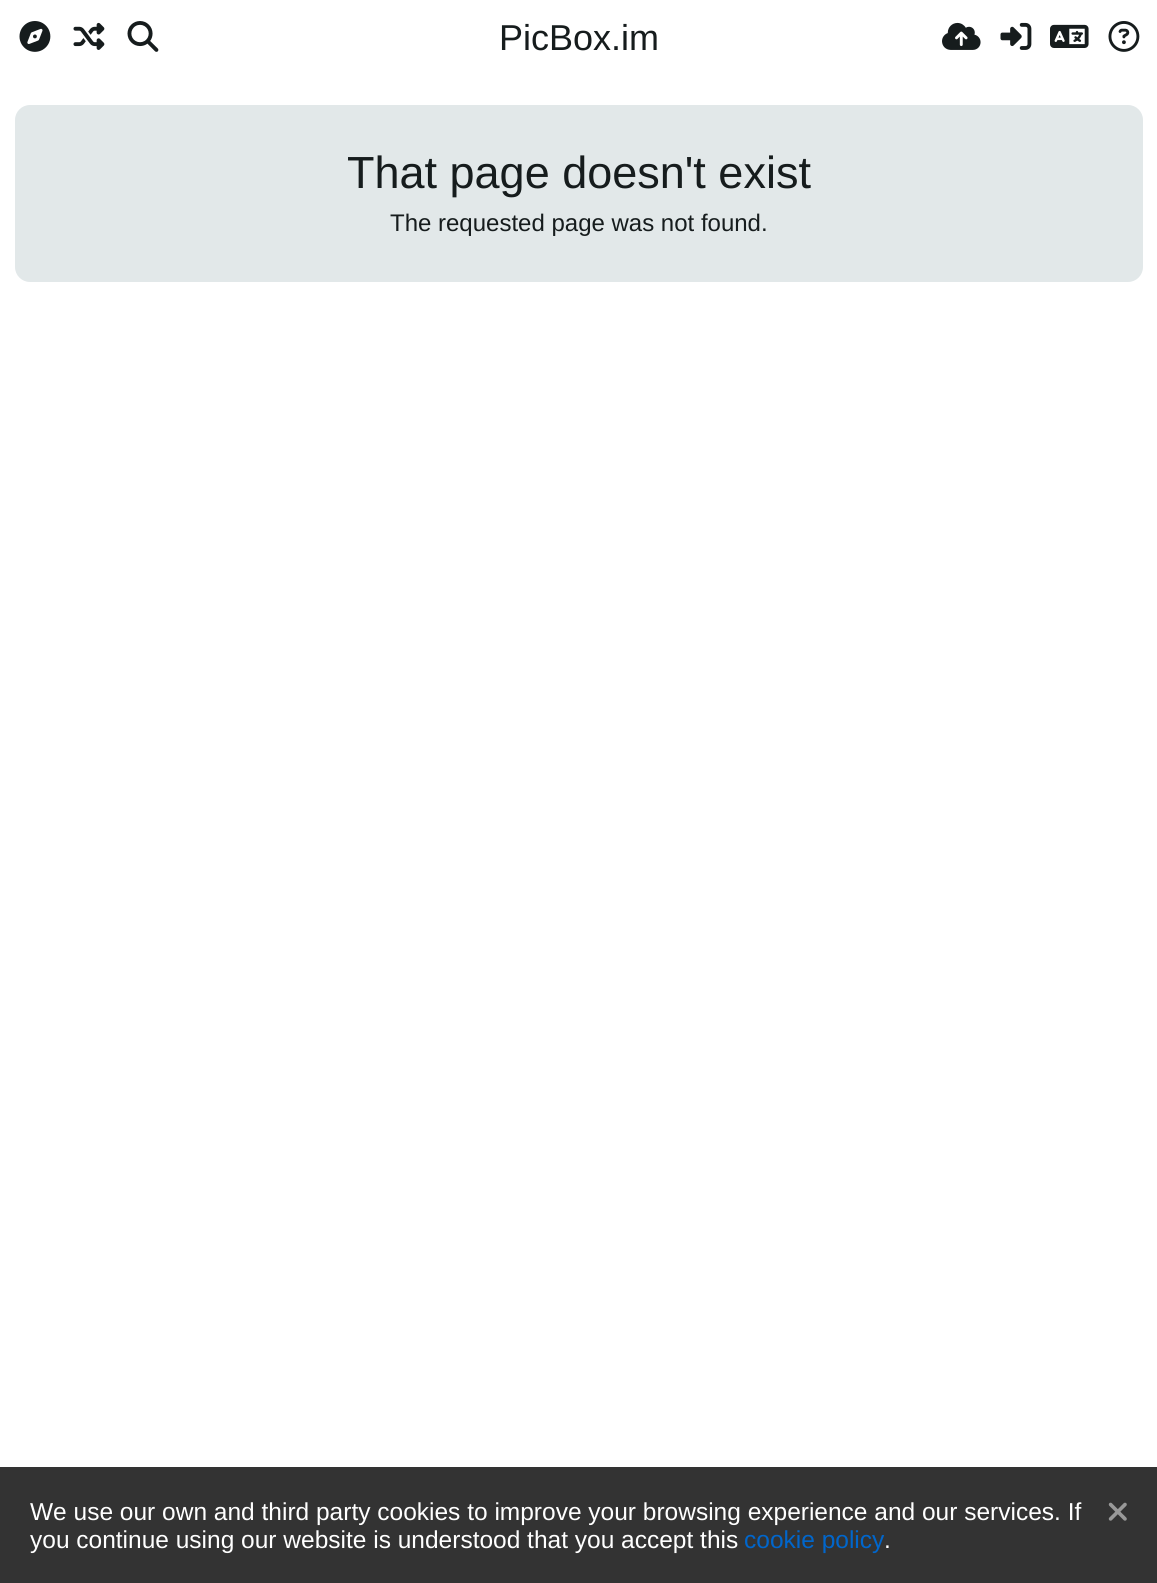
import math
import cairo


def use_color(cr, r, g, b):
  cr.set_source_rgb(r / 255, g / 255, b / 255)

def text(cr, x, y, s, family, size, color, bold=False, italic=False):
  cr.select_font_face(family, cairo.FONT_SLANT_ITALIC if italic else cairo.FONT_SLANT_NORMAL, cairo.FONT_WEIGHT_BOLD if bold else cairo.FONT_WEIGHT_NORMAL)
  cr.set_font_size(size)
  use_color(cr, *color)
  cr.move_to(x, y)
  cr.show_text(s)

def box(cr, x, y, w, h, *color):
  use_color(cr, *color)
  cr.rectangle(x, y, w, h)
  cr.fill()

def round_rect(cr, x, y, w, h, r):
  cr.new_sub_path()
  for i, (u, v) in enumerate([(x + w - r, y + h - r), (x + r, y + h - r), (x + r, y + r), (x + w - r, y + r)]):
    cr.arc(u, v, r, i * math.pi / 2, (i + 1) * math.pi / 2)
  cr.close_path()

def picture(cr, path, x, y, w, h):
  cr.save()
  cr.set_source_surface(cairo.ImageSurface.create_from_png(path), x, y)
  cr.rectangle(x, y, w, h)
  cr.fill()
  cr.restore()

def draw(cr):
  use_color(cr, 255, 255, 255)
  cr.paint()
  picture(cr, "img_01.png", 19, 21, 32, 31)
  picture(cr, "img_02.png", 73, 22, 32, 28)
  picture(cr, "img_03.png", 127, 21, 32, 31)
  picture(cr, "img_04.png", 942, 22, 39, 28)
  picture(cr, "img_05.png", 1000, 22, 32, 28)
  picture(cr, "img_06.png", 1050, 24, 39, 24)
  picture(cr, "img_07.png", 1108, 21, 32, 31)
  use_color(cr, 226, 232, 233)
  round_rect(cr, 15, 105, 1128, 177, 15)
  cr.fill()
  box(cr, 0, 1467, 1157, 116, 51, 51, 51)
  picture(cr, "img_08.png", 1108, 1502, 19, 19)
  text(cr, 499, 50, "PicBox.im", "Liberation Sans", 36, (22, 28, 29))
  text(cr, 347, 188, "That page doesn't exist", "Liberation Sans", 45, (22, 28, 29))
  text(cr, 390, 231, "The requested page was not found.", "Liberation Sans", 24, (22, 28, 29))
  text(cr, 30, 1520, "We use our own and third party cookies to improve your browsing experience and our services. If", "Liberation Sans", 24.5, (255, 255, 255))
  text(cr, 30, 1548, "you continue using our website is understood that you accept this", "Liberation Sans", 24.5, (255, 255, 255))
  text(cr, 744, 1548, "cookie policy", "Liberation Sans", 24.5, (0, 102, 204))
  text(cr, 884, 1548, ".", "Liberation Sans", 24.5, (255, 255, 255))


surface = cairo.ImageSurface(cairo.FORMAT_RGB24, 1157, 1583)
cr = cairo.Context(surface)
options = cairo.FontOptions()
options.set_hint_metrics(cairo.HINT_METRICS_OFF)
options.set_hint_style(cairo.HINT_STYLE_NONE)
cr.set_font_options(options)
cr.set_miter_limit(4)
draw(cr)
surface.write_to_png("out.png")
